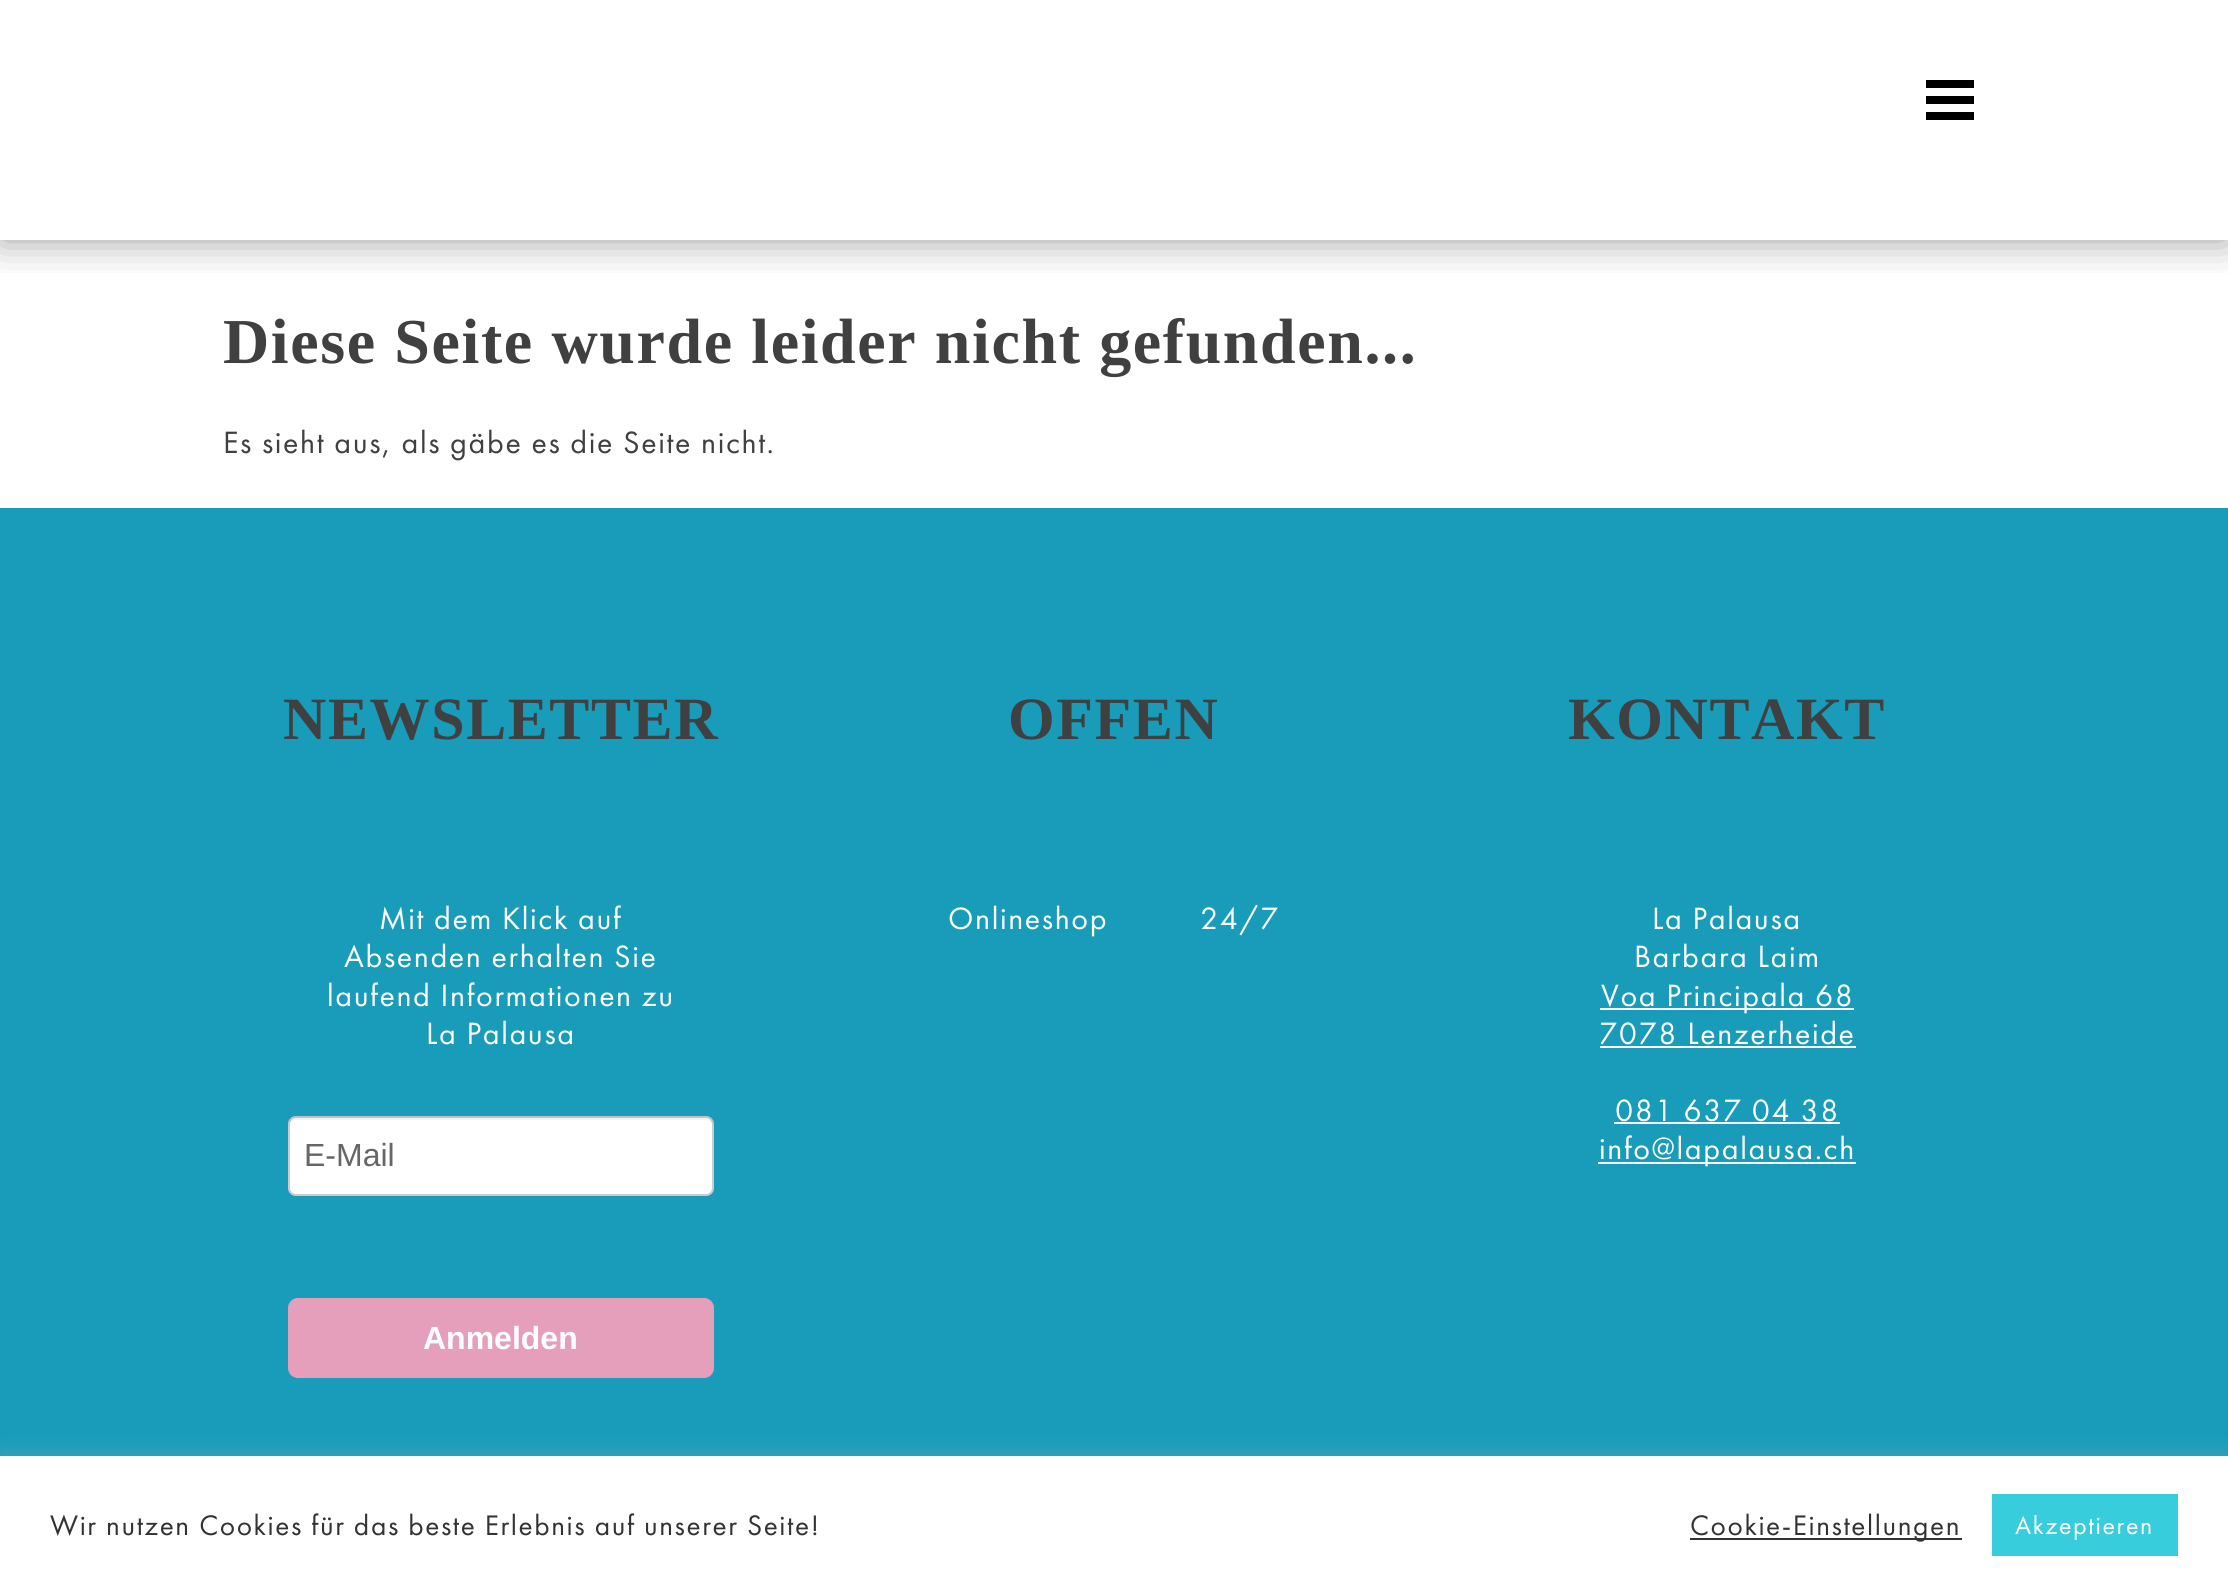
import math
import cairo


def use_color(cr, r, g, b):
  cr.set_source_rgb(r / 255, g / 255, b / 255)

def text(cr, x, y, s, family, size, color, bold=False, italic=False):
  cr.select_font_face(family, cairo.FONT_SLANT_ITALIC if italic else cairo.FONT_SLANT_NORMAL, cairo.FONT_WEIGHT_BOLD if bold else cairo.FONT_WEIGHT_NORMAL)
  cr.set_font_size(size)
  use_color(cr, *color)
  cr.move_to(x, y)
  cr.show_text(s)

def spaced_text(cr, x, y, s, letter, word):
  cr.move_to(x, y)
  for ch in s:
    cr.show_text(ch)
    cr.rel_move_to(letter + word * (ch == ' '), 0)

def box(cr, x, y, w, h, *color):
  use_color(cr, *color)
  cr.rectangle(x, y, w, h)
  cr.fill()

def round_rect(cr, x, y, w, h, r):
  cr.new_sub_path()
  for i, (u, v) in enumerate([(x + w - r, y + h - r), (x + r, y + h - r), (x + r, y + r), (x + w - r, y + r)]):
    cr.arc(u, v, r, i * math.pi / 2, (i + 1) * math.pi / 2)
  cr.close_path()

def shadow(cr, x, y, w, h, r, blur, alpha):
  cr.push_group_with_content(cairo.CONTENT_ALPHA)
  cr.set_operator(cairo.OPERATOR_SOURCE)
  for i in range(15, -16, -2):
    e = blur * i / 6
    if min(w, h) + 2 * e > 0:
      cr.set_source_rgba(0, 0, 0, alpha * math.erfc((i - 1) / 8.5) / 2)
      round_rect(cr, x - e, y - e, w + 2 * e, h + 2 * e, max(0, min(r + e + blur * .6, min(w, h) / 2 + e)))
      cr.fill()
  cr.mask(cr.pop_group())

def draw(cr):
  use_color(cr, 255, 255, 255)
  cr.paint()
  cr.save()
  cr.rectangle(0, 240, 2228, 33)
  cr.clip()
  use_color(cr, 0, 0, 0)
  shadow(cr, 0, 0, 2228, 240, 0, 20, 0.4)
  cr.restore()
  use_color(cr, 0, 0, 0)
  cr.new_path()
  cr.move_to(1974, 88)
  cr.line_to(1926, 88)
  cr.line_to(1926, 80)
  cr.line_to(1974, 80)
  cr.close_path()
  cr.move_to(1974, 96)
  cr.line_to(1926, 96)
  cr.line_to(1926, 104)
  cr.line_to(1974, 104)
  cr.close_path()
  cr.move_to(1974, 112)
  cr.line_to(1926, 112)
  cr.line_to(1926, 120)
  cr.line_to(1974, 120)
  cr.close_path()
  cr.fill()
  box(cr, 0, 508, 2228, 948, 24, 156, 186)
  use_color(cr, 255, 255, 255)
  round_rect(cr, 288, 1116, 426, 80, 8)
  cr.fill()
  round_rect(cr, 289, 1117, 424, 78, 7)
  cr.set_source_rgba(0, 0, 0, 0.2)
  cr.stroke()
  cr.set_source_rgba(0, 0, 0, 0.05)
  cr.new_path()
  cr.move_to(296, 1120)
  cr.line_to(706, 1120)
  cr.curve_to(710, 1120, 714, 1124, 714, 1128)
  cr.curve_to(714, 1123, 714, 1117, 708, 1116)
  cr.line_to(294, 1116)
  cr.curve_to(288, 1117, 288, 1123, 288, 1128)
  cr.curve_to(288, 1124, 292, 1120, 296, 1120)
  cr.close_path()
  cr.fill()
  use_color(cr, 230, 159, 187)
  round_rect(cr, 288, 1298, 426, 80, 10)
  cr.fill()
  box(cr, 1600, 1008, 254, 2, 255, 255, 255)
  box(cr, 1600, 1046, 256, 2, 255, 255, 255)
  box(cr, 1614, 1122, 226, 2, 255, 255, 255)
  box(cr, 1598, 1162, 258, 2, 255, 255, 255)
  use_color(cr, 172, 171, 171)
  shadow(cr, 0, 1454, 2228, 138, 0, 10, 0.3)
  box(cr, 0, 1456, 2228, 137, 255, 255, 255)
  box(cr, 1690, 1538, 272, 2, 51, 51, 51)
  box(cr, 1992, 1494, 186, 62, 55, 205, 221)
  cr.select_font_face("Liberation Serif", cairo.FONT_SLANT_NORMAL, cairo.FONT_WEIGHT_BOLD)
  cr.set_font_size(64)
  use_color(cr, 64, 64, 64)
  spaced_text(cr, 223, 363, "Diese Seite wurde leider nicht gefunden...", 1.6, 0)
  cr.select_font_face("Futura PT")
  cr.set_font_size(32)
  spaced_text(cr, 223, 453, "Es sieht aus, als gäbe es die Seite nicht.", 1.6, 0)
  cr.select_font_face("Liberation Serif", cairo.FONT_SLANT_NORMAL, cairo.FONT_WEIGHT_BOLD)
  cr.set_font_size(60)
  spaced_text(cr, 283, 739, "NEWSLETTER", 1.6, 0)
  cr.select_font_face("Futura PT")
  cr.set_font_size(32)
  use_color(cr, 255, 255, 255)
  spaced_text(cr, 379, 929, "Mit dem Klick auf", 1.6, 0)
  spaced_text(cr, 344, 967, "Absenden erhalten Sie", 1.6, 0)
  spaced_text(cr, 327, 1006, "laufend Informationen zu", 1.6, 0)
  spaced_text(cr, 426, 1044, "La Palausa", 1.6, 0)
  text(cr, 304, 1166, "E-Mail", "Liberation Sans", 32, (102, 102, 102))
  text(cr, 423, 1349, "Anmelden", "Liberation Sans", 32, (255, 255, 255), bold=True)
  cr.select_font_face("Liberation Serif", cairo.FONT_SLANT_NORMAL, cairo.FONT_WEIGHT_BOLD)
  cr.set_font_size(60)
  use_color(cr, 64, 64, 64)
  spaced_text(cr, 1008, 739, "OFFEN", 1.6, 0)
  cr.select_font_face("Futura PT")
  cr.set_font_size(32)
  use_color(cr, 255, 255, 255)
  spaced_text(cr, 948, 929, "Onlineshop", 1.6, 0)
  spaced_text(cr, 1200, 929, "24/7", 1.6, 0)
  cr.select_font_face("Liberation Serif", cairo.FONT_SLANT_NORMAL, cairo.FONT_WEIGHT_BOLD)
  cr.set_font_size(60)
  use_color(cr, 64, 64, 64)
  spaced_text(cr, 1568, 739, "KONTAKT", 1.6, 0)
  cr.select_font_face("Futura PT")
  cr.set_font_size(32)
  use_color(cr, 255, 255, 255)
  spaced_text(cr, 1652, 929, "La Palausa", 1.6, 0)
  spaced_text(cr, 1634, 967, "Barbara Laim", 1.6, 0)
  spaced_text(cr, 1601, 1006, "Voa Principala 68", 1.6, 0)
  spaced_text(cr, 1599, 1044, "7078 Lenzerheide", 1.6, 0)
  spaced_text(cr, 1615, 1121, "081 637 04 38", 1.6, 0)
  spaced_text(cr, 1599, 1159, "info@lapalausa.ch", 1.6, 0)
  cr.set_font_size(29.3)
  use_color(cr, 51, 51, 51)
  spaced_text(cr, 50, 1535, "Wir nutzen Cookies für das beste Erlebnis auf unserer Seite!", 1.6, 0)
  spaced_text(cr, 1690, 1535, "Cookie-Einstellungen", 1.6, 0)
  cr.set_font_size(26)
  use_color(cr, 255, 255, 255)
  spaced_text(cr, 2015, 1534, "Akzeptieren", 1.6, 0)


surface = cairo.ImageSurface(cairo.FORMAT_RGB24, 2228, 1593)
cr = cairo.Context(surface)
options = cairo.FontOptions()
options.set_hint_metrics(cairo.HINT_METRICS_OFF)
options.set_hint_style(cairo.HINT_STYLE_NONE)
cr.set_font_options(options)
cr.set_miter_limit(4)
draw(cr)
surface.write_to_png("out.png")
